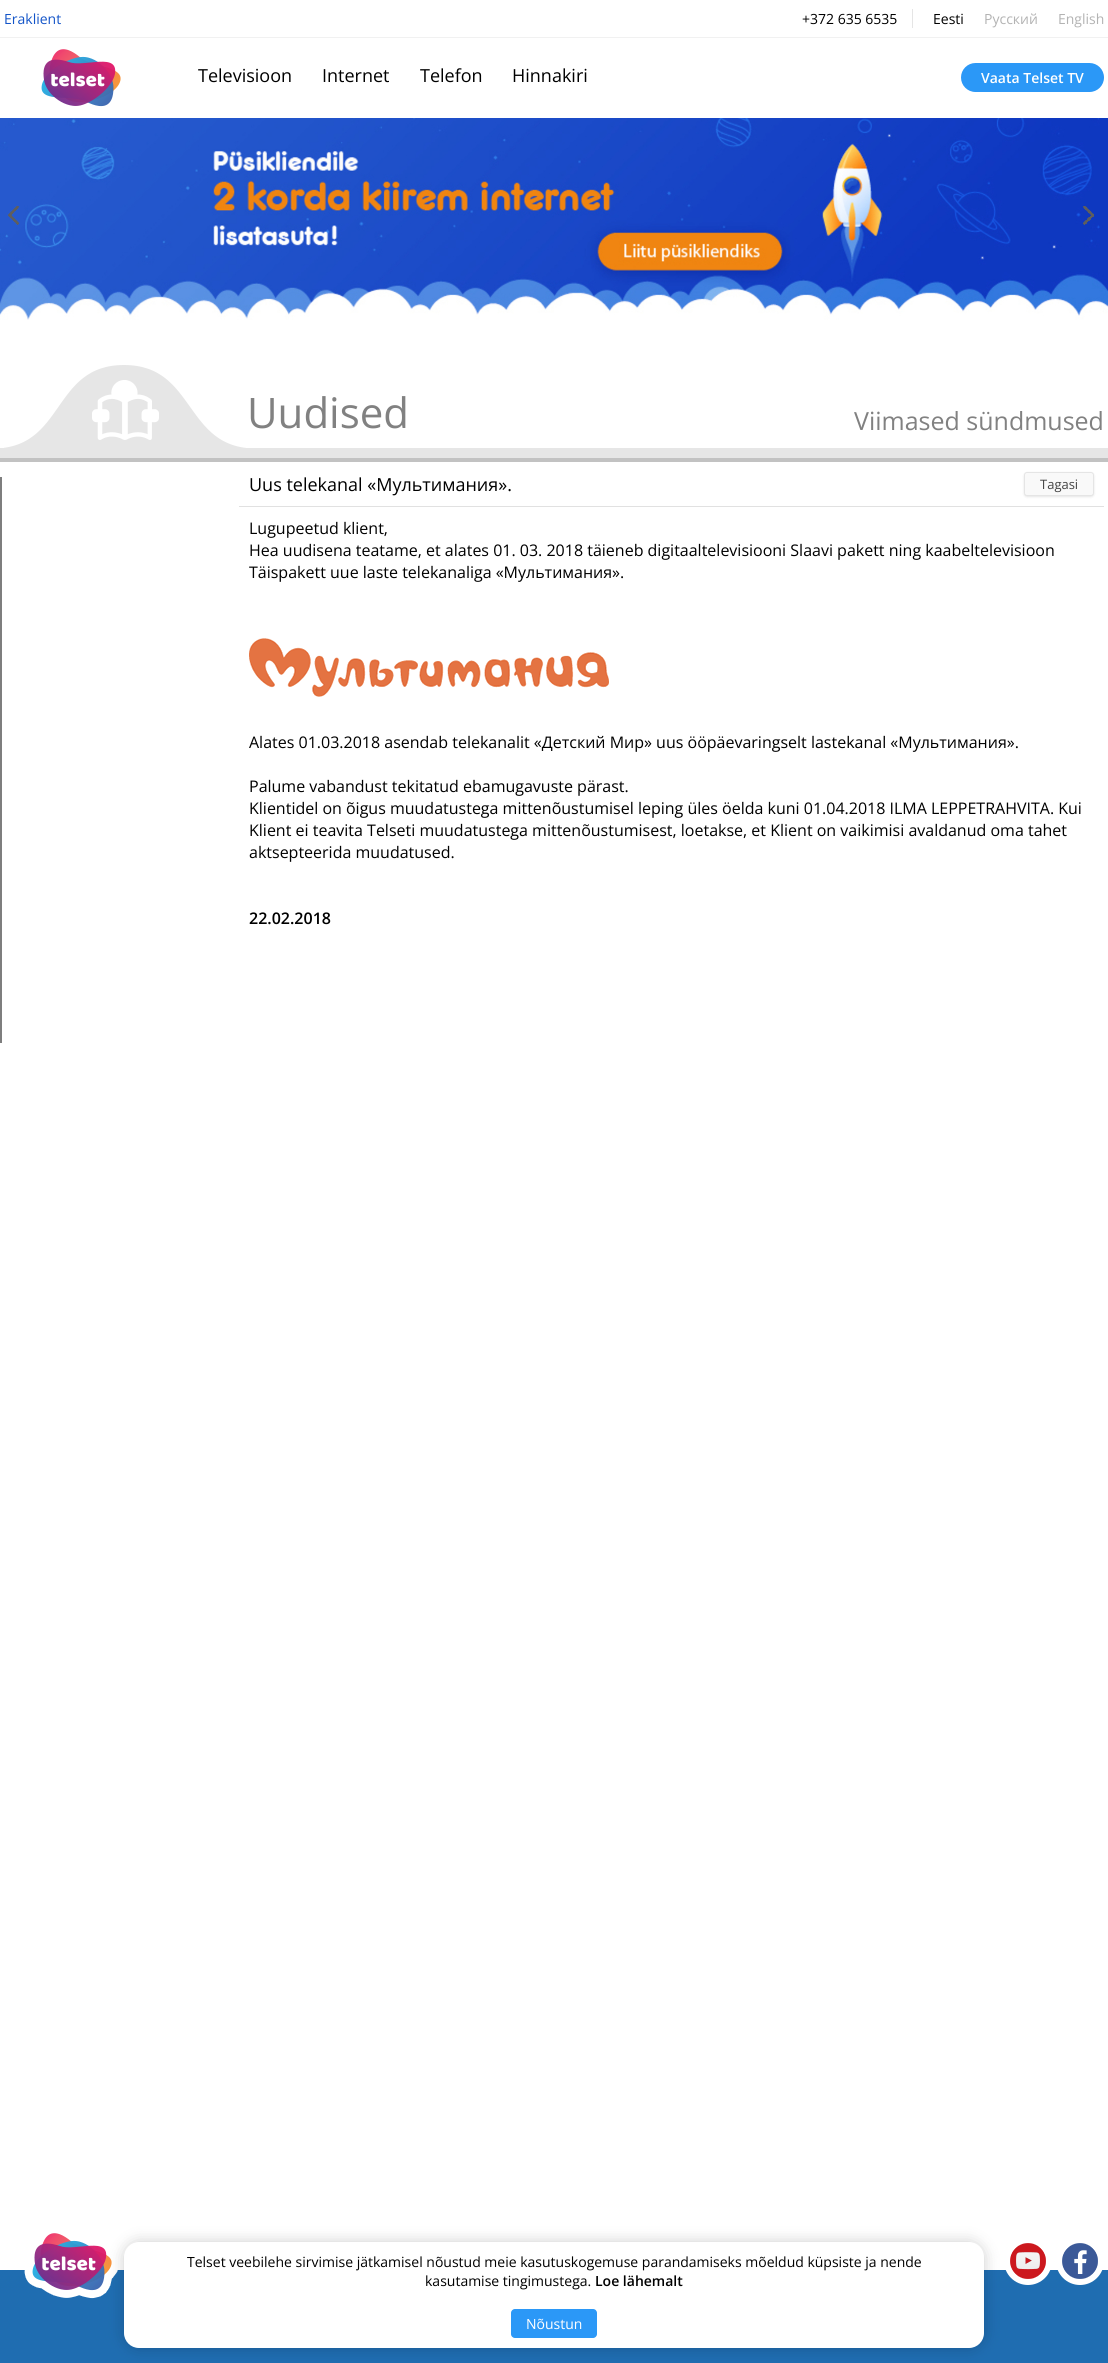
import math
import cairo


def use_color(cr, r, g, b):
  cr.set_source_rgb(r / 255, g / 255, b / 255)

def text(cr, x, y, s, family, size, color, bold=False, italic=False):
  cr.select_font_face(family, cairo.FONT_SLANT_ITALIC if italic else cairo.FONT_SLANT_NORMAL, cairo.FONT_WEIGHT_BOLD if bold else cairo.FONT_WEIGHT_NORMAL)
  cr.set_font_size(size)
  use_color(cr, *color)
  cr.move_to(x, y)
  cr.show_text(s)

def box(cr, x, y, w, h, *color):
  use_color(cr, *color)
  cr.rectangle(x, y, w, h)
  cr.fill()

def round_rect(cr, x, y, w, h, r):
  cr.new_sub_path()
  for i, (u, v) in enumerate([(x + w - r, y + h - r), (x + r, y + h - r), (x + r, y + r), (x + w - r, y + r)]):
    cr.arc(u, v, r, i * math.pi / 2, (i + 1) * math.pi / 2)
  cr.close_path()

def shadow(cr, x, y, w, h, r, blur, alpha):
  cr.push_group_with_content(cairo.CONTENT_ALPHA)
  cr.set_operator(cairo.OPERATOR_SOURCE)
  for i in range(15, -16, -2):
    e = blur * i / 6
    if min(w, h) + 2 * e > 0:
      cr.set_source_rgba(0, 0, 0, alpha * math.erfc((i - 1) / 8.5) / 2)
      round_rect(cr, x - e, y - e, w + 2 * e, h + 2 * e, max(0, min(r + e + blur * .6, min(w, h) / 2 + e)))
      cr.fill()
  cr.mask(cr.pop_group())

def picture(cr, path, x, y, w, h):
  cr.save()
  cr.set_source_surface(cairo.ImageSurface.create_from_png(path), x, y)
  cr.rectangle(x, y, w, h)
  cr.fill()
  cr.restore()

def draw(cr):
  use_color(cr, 255, 255, 255)
  cr.paint()
  box(cr, 0, 37, 1108, 1, 241, 241, 241)
  box(cr, 912, 9, 1, 19, 229, 229, 229)
  picture(cr, "img_01.png", 41, 49, 80, 58)
  use_color(cr, 43, 152, 247)
  round_rect(cr, 961, 63, 143, 29, 14.5)
  cr.fill()
  picture(cr, "img_02.png", 0, 118, 1108, 202)
  picture(cr, "img_03.png", 8, 206, 11, 19)
  picture(cr, "img_04.png", 1083, 206, 11, 19)
  picture(cr, "img_05.png", 4, 365, 242, 83)
  box(cr, 0, 448, 1108, 10, 230, 230, 230)
  box(cr, 0, 458, 1108, 4, 194, 194, 194)
  box(cr, 0, 477, 2, 566, 126, 126, 126)
  box(cr, 239, 506, 865, 1, 225, 225, 225)
  use_color(cr, 0, 0, 0)
  shadow(cr, 1024, 473, 70, 24, 3, 1, 0.1)
  use_color(cr, 249, 249, 249)
  round_rect(cr, 1024.5, 472.5, 69, 23, 2.5)
  cr.fill_preserve()
  use_color(cr, 229, 229, 229)
  cr.set_line_width(1)
  cr.stroke()
  picture(cr, "img_06.png", 249, 638, 360, 59)
  box(cr, 0, 2270, 1108, 93, 31, 109, 177)
  picture(cr, "img_07.png", 24, 2233, 94, 66)
  use_color(cr, 255, 255, 255)
  cr.arc(1028, 2261, 24, 0, 2 * math.pi)
  cr.fill()
  use_color(cr, 0, 0, 0)
  shadow(cr, 124, 2242, 860, 106, 15, 7.5, 0.2)
  use_color(cr, 255, 255, 255)
  round_rect(cr, 124, 2242, 860, 106, 15)
  cr.fill()
  use_color(cr, 43, 152, 247)
  round_rect(cr, 511, 2309, 86, 29, 4)
  cr.fill()
  picture(cr, "img_08.png", 1010, 2243, 36, 36)
  use_color(cr, 255, 255, 255)
  cr.arc(1080, 2261, 24, 0, 2 * math.pi)
  cr.fill()
  picture(cr, "img_09.png", 1062, 2243, 36, 36)
  text(cr, 4, 24, "Eraklient", "Open Sans", 14, (19, 84, 200))
  text(cr, 802, 24, "+372 635 6535", "Open Sans", 14, (0, 0, 0))
  text(cr, 933, 24, "Eesti", "Open Sans", 14, (0, 0, 0))
  text(cr, 984, 24, "Русский", "Open Sans", 14, (179, 179, 179))
  text(cr, 1058, 24, "English", "Open Sans", 14, (179, 179, 179))
  text(cr, 198, 82, "Televisioon", "Open Sans", 18, (0, 0, 0))
  text(cr, 322, 82, "Internet", "Open Sans", 18, (0, 0, 0))
  text(cr, 420, 82, "Telefon", "Open Sans", 18, (0, 0, 0))
  text(cr, 512, 82, "Hinnakiri", "Open Sans", 18, (0, 0, 0))
  text(cr, 981, 83, "Vaata Telset TV", "Open Sans SemiBold", 14, (255, 255, 255))
  text(cr, 247, 428, "Uudised", "Open Sans", 42, (129, 129, 129))
  text(cr, 854, 430, "Viimased sündmused", "Open Sans", 25, (129, 129, 129))
  text(cr, 249, 491, "Uus telekanal «Мультимания».", "Open Sans", 18, (0, 0, 0))
  text(cr, 1040, 489, "Tagasi", "Open Sans", 13, (68, 68, 68))
  text(cr, 249, 534, "Lugupeetud klient,", "Open Sans", 16, (0, 0, 0))
  text(cr, 249, 556, "Hea uudisena teatame, et alates 01. 03. 2018 täieneb digitaaltelevisiooni Slaavi pakett ning kaabeltelevisioon", "Open Sans", 16, (0, 0, 0))
  text(cr, 249, 578, "Täispakett uue laste telekanaliga «Мультимания».", "Open Sans", 16, (0, 0, 0))
  text(cr, 249, 748, "Alates 01.03.2018 asendab telekanalit «Детский Мир» uus ööpäevaringselt lastekanal «Мультимания».", "Open Sans", 16, (0, 0, 0))
  text(cr, 249, 792, "Palume vabandust tekitatud ebamugavuste pärast.", "Open Sans", 16, (0, 0, 0))
  text(cr, 249, 814, "Klientidel on õigus muudatustega mittenõustumisel leping üles öelda kuni 01.04.2018 ILMA LEPPETRAHVITA. Kui", "Open Sans", 16, (0, 0, 0))
  text(cr, 249, 836, "Klient ei teavita Telseti muudatustega mittenõustumisest, loetakse, et Klient on vaikimisi avaldanud oma tahet", "Open Sans", 16, (0, 0, 0))
  text(cr, 249, 858, "aktsepteerida muudatused.", "Open Sans", 16, (0, 0, 0))
  text(cr, 249, 924, "22.02.2018", "Open Sans SemiBold", 16, (0, 0, 0))
  text(cr, 187, 2267, "Telset veebilehe sirvimise jätkamisel nõustud meie kasutuskogemuse parandamiseks mõeldud küpsiste ja nende", "Open Sans", 14, (0, 0, 0))
  text(cr, 425, 2286, "kasutamise tingimustega.", "Open Sans", 14, (0, 0, 0))
  text(cr, 595, 2286, "Loe lähemalt", "Open Sans SemiBold", 14, (0, 0, 0))
  text(cr, 526, 2329, "Nõustun", "Open Sans", 14, (255, 255, 255))


surface = cairo.ImageSurface(cairo.FORMAT_RGB24, 1108, 2363)
cr = cairo.Context(surface)
options = cairo.FontOptions()
options.set_hint_metrics(cairo.HINT_METRICS_OFF)
options.set_hint_style(cairo.HINT_STYLE_NONE)
cr.set_font_options(options)
cr.set_miter_limit(4)
draw(cr)
surface.write_to_png("out.png")
